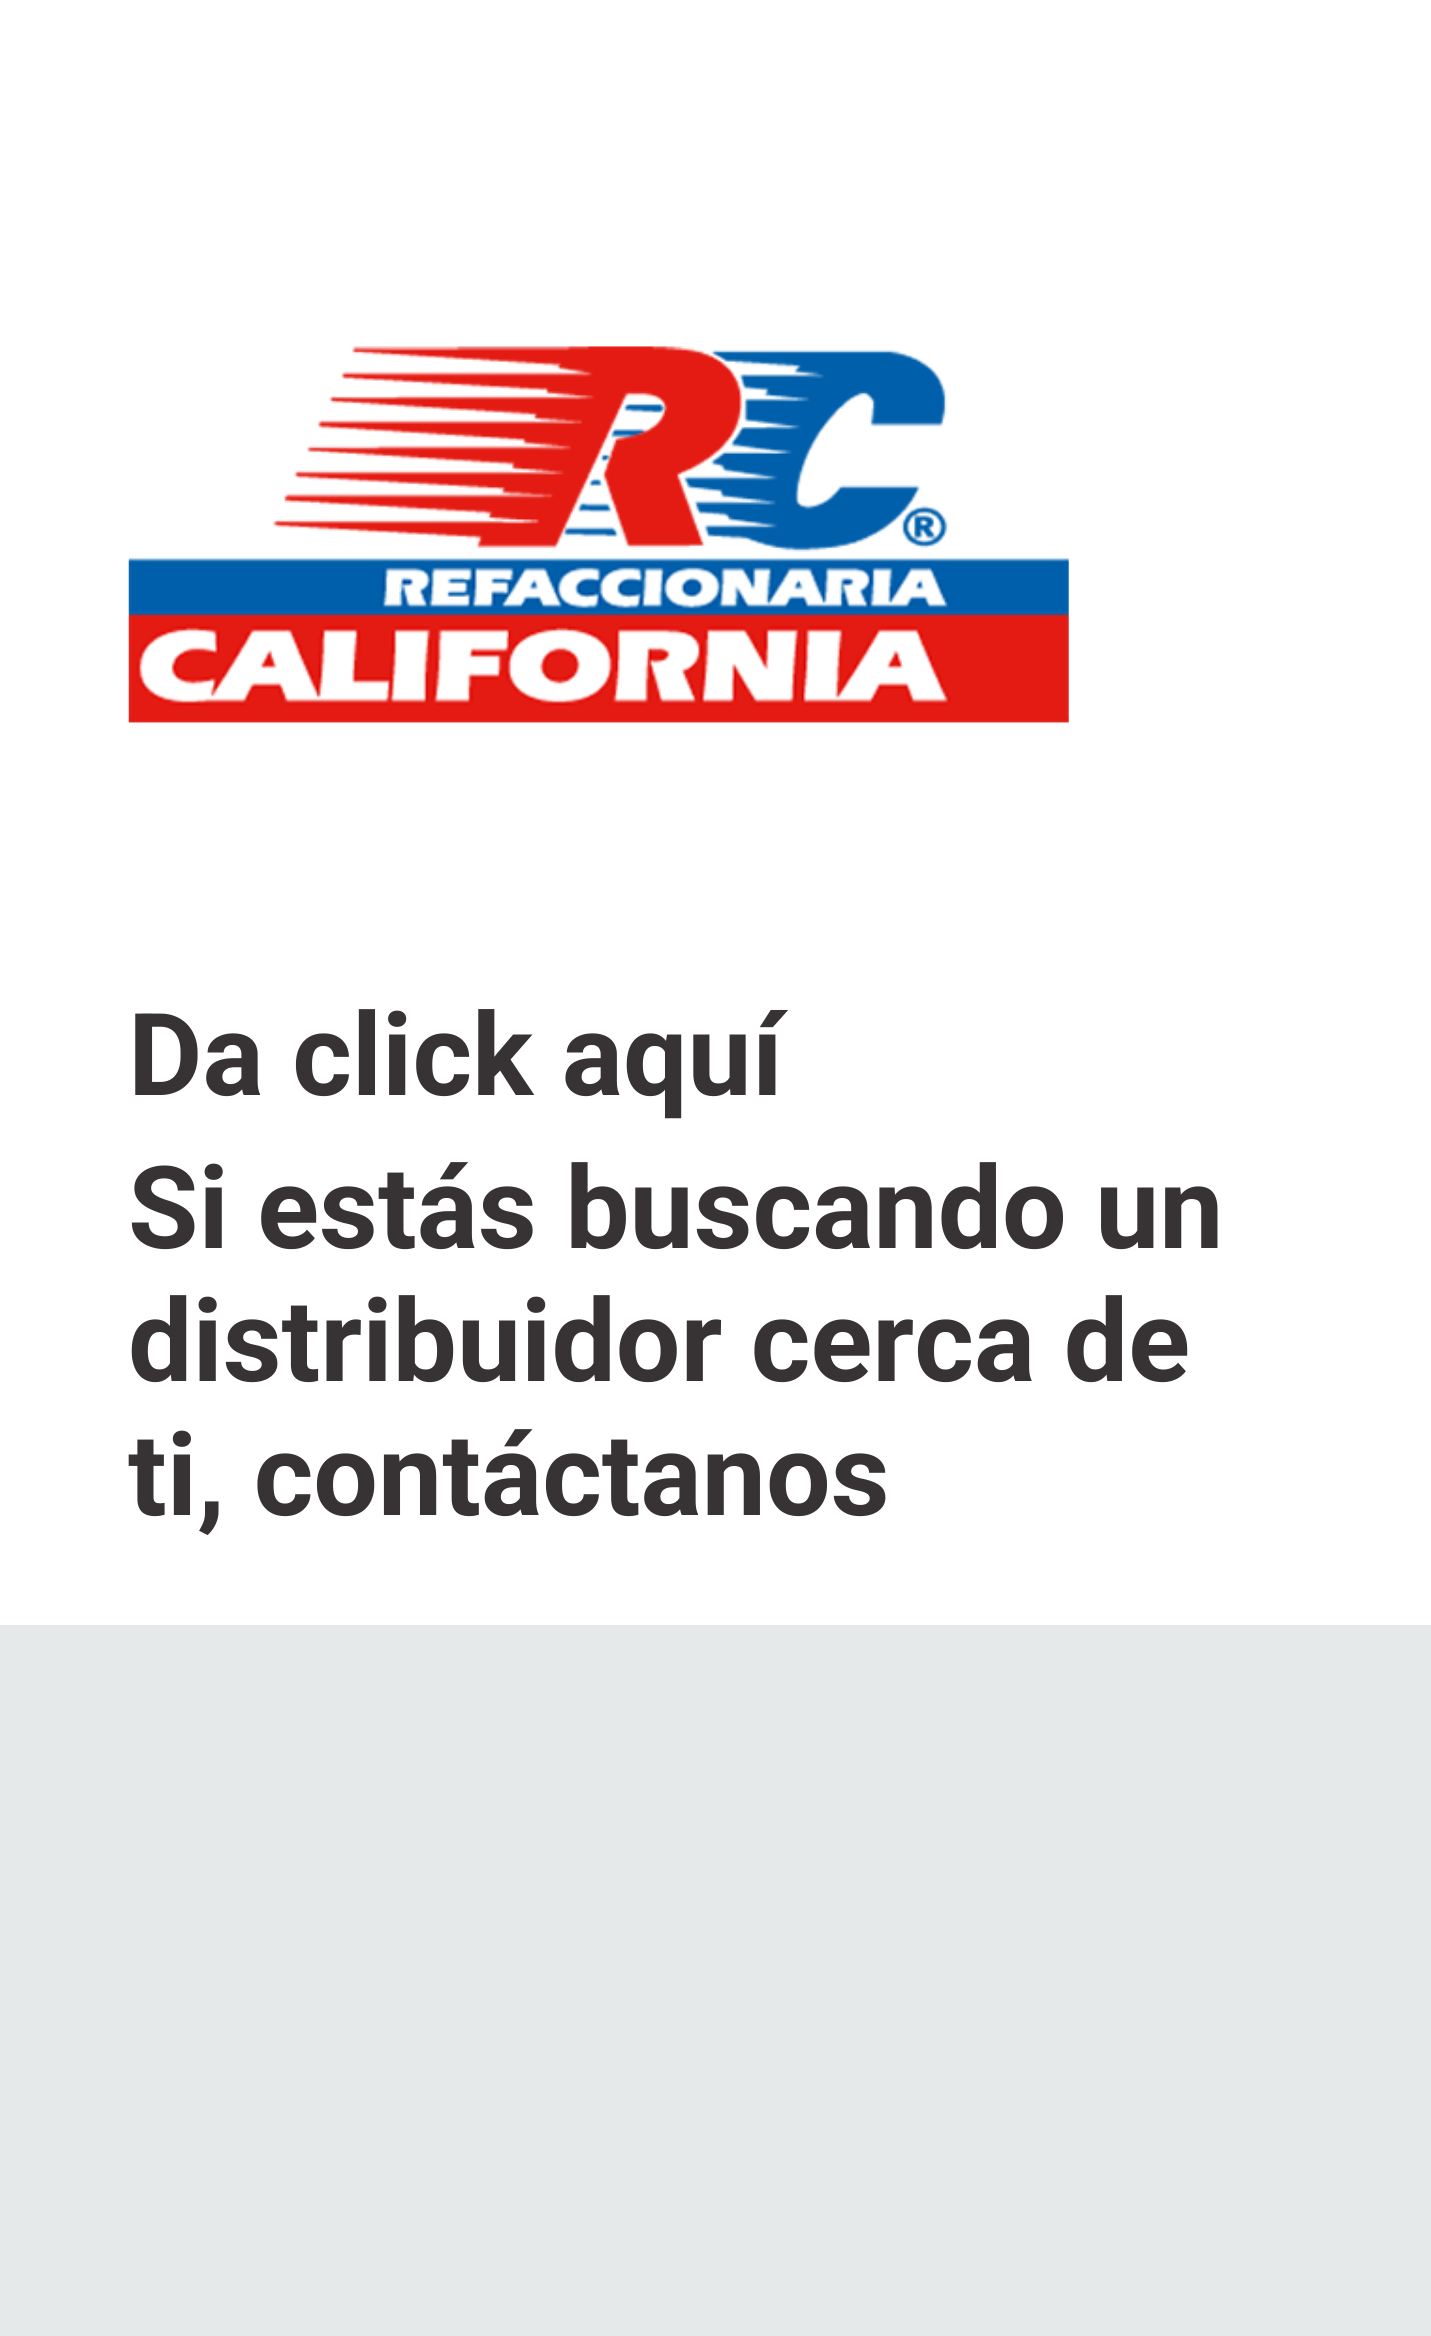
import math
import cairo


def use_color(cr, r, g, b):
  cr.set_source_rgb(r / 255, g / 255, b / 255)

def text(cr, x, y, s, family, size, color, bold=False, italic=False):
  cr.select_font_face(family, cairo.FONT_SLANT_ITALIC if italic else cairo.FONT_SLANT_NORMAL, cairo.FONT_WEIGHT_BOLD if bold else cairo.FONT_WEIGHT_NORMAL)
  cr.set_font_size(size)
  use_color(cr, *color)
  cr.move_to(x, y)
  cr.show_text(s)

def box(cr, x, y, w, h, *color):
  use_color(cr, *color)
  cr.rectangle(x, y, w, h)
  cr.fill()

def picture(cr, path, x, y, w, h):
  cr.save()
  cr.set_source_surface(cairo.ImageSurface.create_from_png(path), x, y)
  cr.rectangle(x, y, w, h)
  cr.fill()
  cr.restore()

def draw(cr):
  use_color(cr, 230, 233, 234)
  cr.paint()
  box(cr, 0, 0, 1431, 1625, 255, 255, 255)
  picture(cr, "img_01.png", 128, 346, 941, 377)
  text(cr, 128, 1095, "Da click aquí", "Roboto", 114.5, (55, 51, 52), bold=True)
  text(cr, 128, 1248, "Si estás buscando un", "Roboto", 114.5, (55, 51, 52), bold=True)
  text(cr, 128, 1381, "distribuidor cerca de", "Roboto", 114.5, (55, 51, 52), bold=True)
  text(cr, 128, 1515, "ti, contáctanos", "Roboto", 114.5, (55, 51, 52), bold=True)


surface = cairo.ImageSurface(cairo.FORMAT_RGB24, 1431, 2336)
cr = cairo.Context(surface)
options = cairo.FontOptions()
options.set_hint_metrics(cairo.HINT_METRICS_OFF)
options.set_hint_style(cairo.HINT_STYLE_NONE)
cr.set_font_options(options)
cr.set_miter_limit(4)
draw(cr)
surface.write_to_png("out.png")
